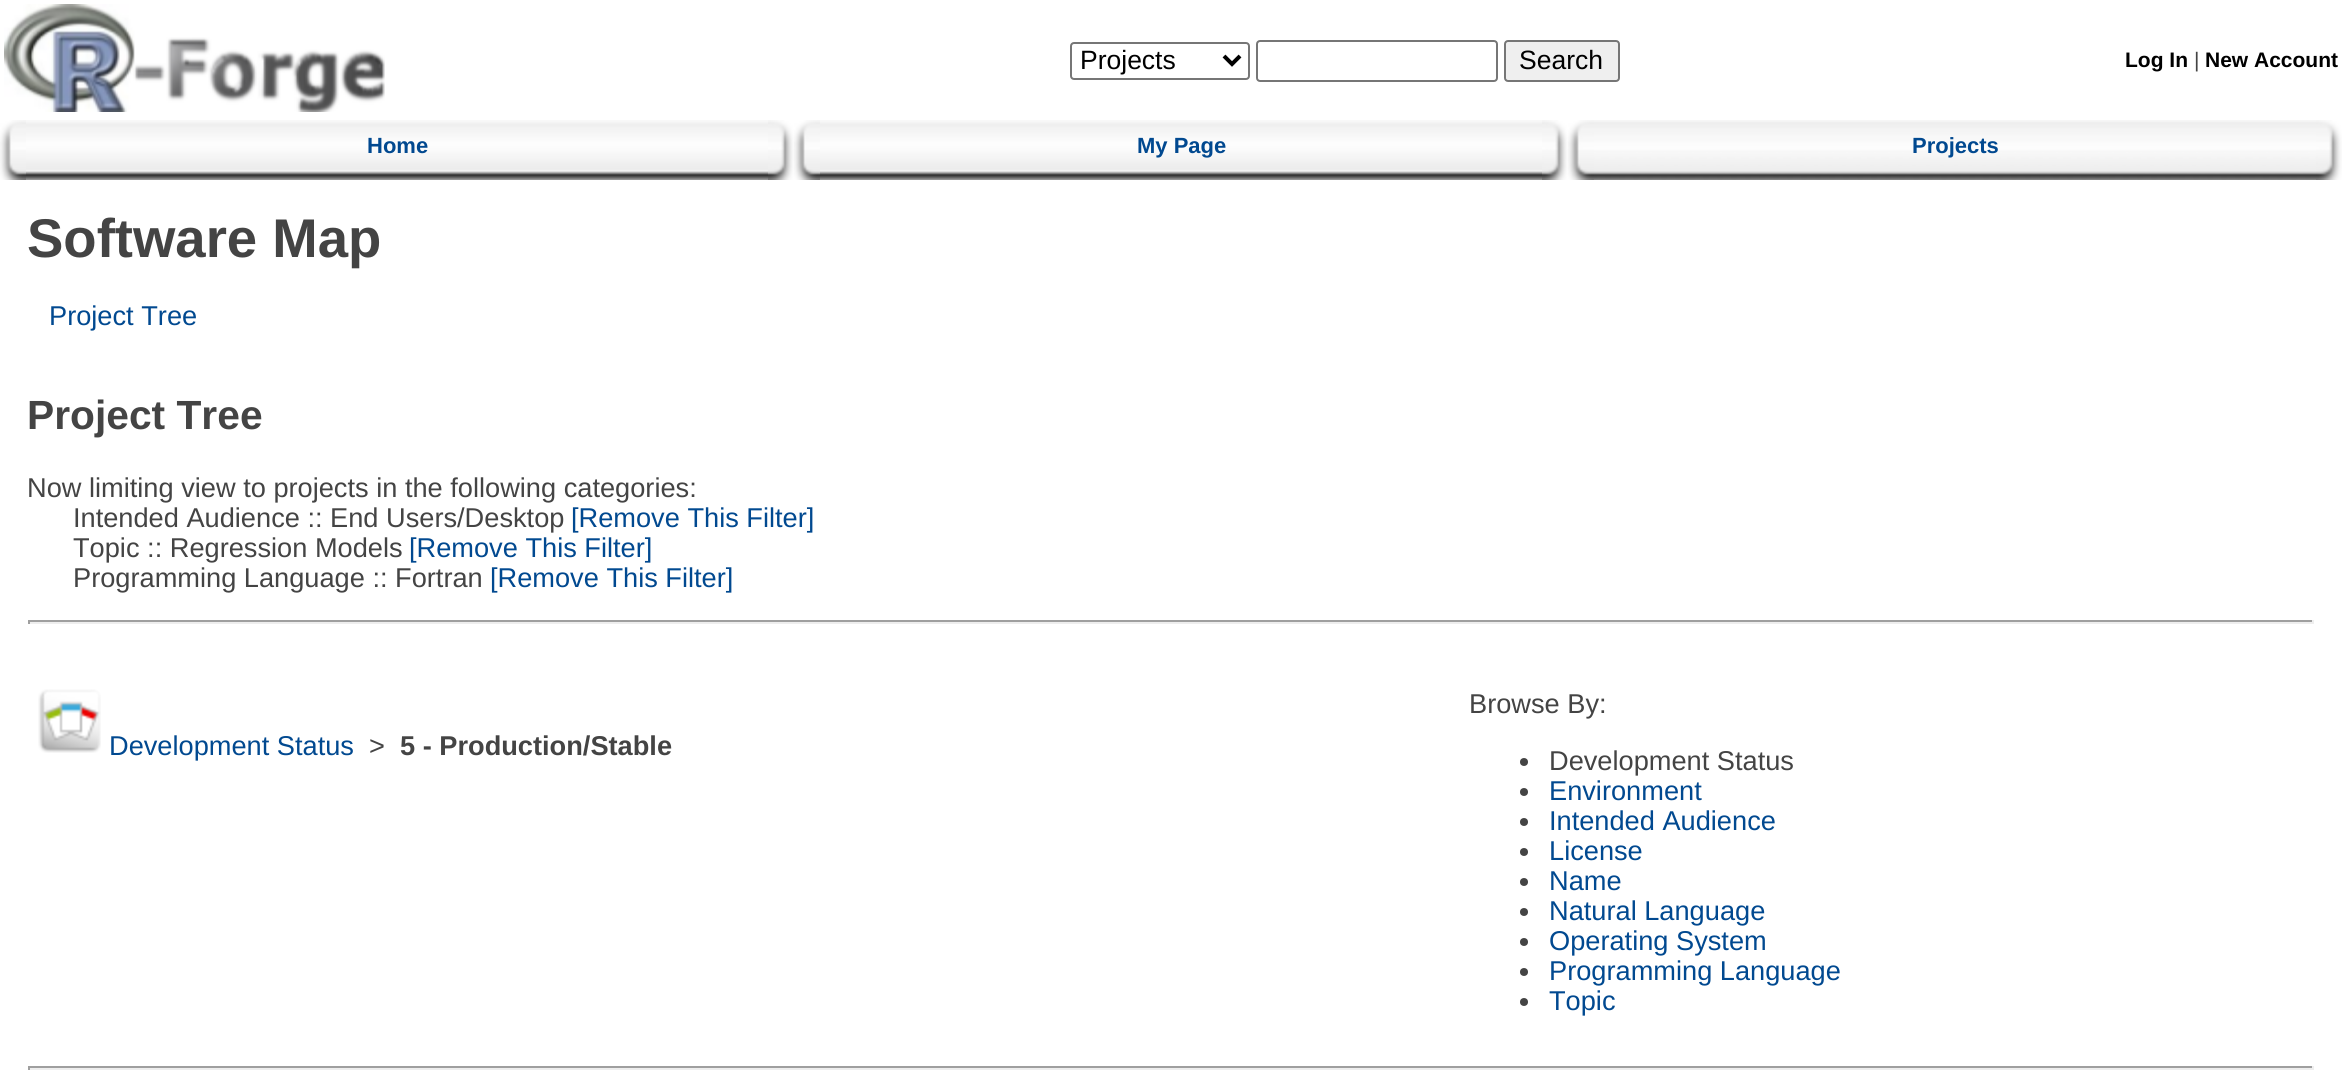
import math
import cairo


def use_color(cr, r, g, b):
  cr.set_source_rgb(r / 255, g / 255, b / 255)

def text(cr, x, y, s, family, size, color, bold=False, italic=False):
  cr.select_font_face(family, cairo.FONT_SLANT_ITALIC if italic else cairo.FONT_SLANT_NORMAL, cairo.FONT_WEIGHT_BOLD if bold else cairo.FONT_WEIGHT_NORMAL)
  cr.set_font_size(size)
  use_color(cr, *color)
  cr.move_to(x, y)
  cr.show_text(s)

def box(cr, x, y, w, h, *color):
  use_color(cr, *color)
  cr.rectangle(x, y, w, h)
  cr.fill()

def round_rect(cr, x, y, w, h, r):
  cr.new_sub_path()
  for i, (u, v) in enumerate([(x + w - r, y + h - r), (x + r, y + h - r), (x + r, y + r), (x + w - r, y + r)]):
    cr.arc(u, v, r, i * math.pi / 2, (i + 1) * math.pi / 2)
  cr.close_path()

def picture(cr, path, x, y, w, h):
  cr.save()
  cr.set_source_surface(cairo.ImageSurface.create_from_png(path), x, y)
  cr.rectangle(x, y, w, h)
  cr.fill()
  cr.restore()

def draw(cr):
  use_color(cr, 255, 255, 255)
  cr.paint()
  picture(cr, "img_01.png", 4, 4, 381, 108)
  round_rect(cr, 1071, 43, 178, 36, 3)
  use_color(cr, 118, 118, 118)
  cr.stroke()
  cr.new_path()
  cr.move_to(1224, 56)
  cr.line_to(1232, 64)
  cr.line_to(1240, 56)
  use_color(cr, 0, 0, 0)
  cr.set_line_width(4)
  cr.stroke()
  round_rect(cr, 1257, 41, 240, 40, 3)
  use_color(cr, 118, 118, 118)
  cr.set_line_width(2)
  cr.stroke()
  use_color(cr, 239, 239, 239)
  round_rect(cr, 1505, 41, 114, 40, 3)
  cr.fill_preserve()
  use_color(cr, 118, 118, 118)
  cr.stroke()
  picture(cr, "img_02.png", 0, 120, 26, 60)
  picture(cr, "img_03.png", 26, 120, 742, 60)
  picture(cr, "img_04.png", 768, 120, 26, 60)
  picture(cr, "img_02.png", 794, 120, 26, 60)
  picture(cr, "img_05.png", 820, 120, 722, 60)
  picture(cr, "img_04.png", 1542, 120, 26, 60)
  picture(cr, "img_02.png", 1568, 120, 26, 60)
  picture(cr, "img_06.png", 1594, 120, 722, 60)
  picture(cr, "img_04.png", 2316, 120, 26, 60)
  box(cr, 28, 620, 2286, 2, 159, 159, 159)
  box(cr, 2312, 620, 2, 4, 238, 238, 238)
  box(cr, 28, 622, 2286, 2, 238, 238, 238)
  box(cr, 28, 620, 2, 4, 159, 159, 159)
  picture(cr, "img_07.png", 38, 689, 63, 64)
  use_color(cr, 68, 68, 68)
  cr.arc(1524, 762, 4, 0, 2 * math.pi)
  cr.fill()
  cr.arc(1524, 792, 4, 0, 2 * math.pi)
  cr.fill()
  cr.arc(1524, 822, 4, 0, 2 * math.pi)
  cr.fill()
  cr.arc(1524, 852, 4, 0, 2 * math.pi)
  cr.fill()
  cr.arc(1524, 882, 4, 0, 2 * math.pi)
  cr.fill()
  cr.arc(1524, 912, 4, 0, 2 * math.pi)
  cr.fill()
  cr.arc(1524, 942, 4, 0, 2 * math.pi)
  cr.fill()
  cr.arc(1524, 972, 4, 0, 2 * math.pi)
  cr.fill()
  cr.arc(1524, 1002, 4, 0, 2 * math.pi)
  cr.fill()
  box(cr, 28, 1066, 2286, 2, 159, 159, 159)
  box(cr, 2312, 1066, 2, 4, 238, 238, 238)
  box(cr, 28, 1068, 2286, 2, 238, 238, 238)
  box(cr, 28, 1066, 2, 4, 159, 159, 159)
  text(cr, 1080, 69, "Projects", "Liberation Sans", 26.5, (0, 0, 0))
  text(cr, 1519, 69, "Search", "Liberation Sans", 26.5, (0, 0, 0))
  text(cr, 2125, 67, "Log In", "Liberation Sans", 21, (0, 0, 0), bold=True)
  text(cr, 2194, 67, "|", "Liberation Sans", 21, (68, 68, 68))
  text(cr, 2205, 67, "New Account", "Liberation Sans", 21, (0, 0, 0), bold=True)
  text(cr, 367, 153, "Home", "Liberation Sans", 22, (1, 73, 144), bold=True)
  text(cr, 1137, 153, "My Page", "Liberation Sans", 22, (1, 73, 144), bold=True)
  text(cr, 1912, 153, "Projects", "Liberation Sans", 22, (1, 73, 144), bold=True)
  text(cr, 27, 257, "Software Map", "Liberation Sans", 54.5, (68, 68, 68), bold=True)
  text(cr, 49, 325, "Project Tree", "Liberation Sans", 27.2, (1, 73, 144))
  text(cr, 27, 429, "Project Tree", "Liberation Sans", 40.75, (68, 68, 68), bold=True)
  text(cr, 27, 497, "Now limiting view to projects in the following categories:", "Liberation Sans", 27.2, (68, 68, 68))
  text(cr, 73, 527, "Intended Audience :: End Users/Desktop", "Liberation Sans", 27.2, (68, 68, 68))
  text(cr, 571, 527, "[Remove This Filter]", "Liberation Sans", 27.2, (1, 73, 144))
  text(cr, 73, 557, "Topic :: Regression Models", "Liberation Sans", 27.2, (68, 68, 68))
  text(cr, 409, 557, "[Remove This Filter]", "Liberation Sans", 27.2, (1, 73, 144))
  text(cr, 73, 587, "Programming Language :: Fortran", "Liberation Sans", 27.2, (68, 68, 68))
  text(cr, 490, 587, "[Remove This Filter]", "Liberation Sans", 27.2, (1, 73, 144))
  text(cr, 109, 755, "Development Status", "Liberation Sans", 27.2, (1, 73, 144))
  text(cr, 369, 755, ">", "Liberation Sans", 27.2, (68, 68, 68))
  text(cr, 400, 755, "5 - Production/Stable", "Liberation Sans", 27.2, (68, 68, 68), bold=True)
  text(cr, 1469, 713, "Browse By:", "Liberation Sans", 27.2, (68, 68, 68))
  text(cr, 1549, 770, "Development Status", "Liberation Sans", 27.2, (68, 68, 68))
  text(cr, 1549, 800, "Environment", "Liberation Sans", 27.2, (1, 73, 144))
  text(cr, 1549, 830, "Intended Audience", "Liberation Sans", 27.2, (1, 73, 144))
  text(cr, 1549, 860, "License", "Liberation Sans", 27.2, (1, 73, 144))
  text(cr, 1549, 890, "Name", "Liberation Sans", 27.2, (1, 73, 144))
  text(cr, 1549, 920, "Natural Language", "Liberation Sans", 27.2, (1, 73, 144))
  text(cr, 1549, 950, "Operating System", "Liberation Sans", 27.2, (1, 73, 144))
  text(cr, 1549, 980, "Programming Language", "Liberation Sans", 27.2, (1, 73, 144))
  text(cr, 1549, 1010, "Topic", "Liberation Sans", 27.2, (1, 73, 144))


surface = cairo.ImageSurface(cairo.FORMAT_RGB24, 2342, 1086)
cr = cairo.Context(surface)
options = cairo.FontOptions()
options.set_hint_metrics(cairo.HINT_METRICS_OFF)
options.set_hint_style(cairo.HINT_STYLE_NONE)
cr.set_font_options(options)
cr.set_miter_limit(4)
draw(cr)
surface.write_to_png("out.png")
